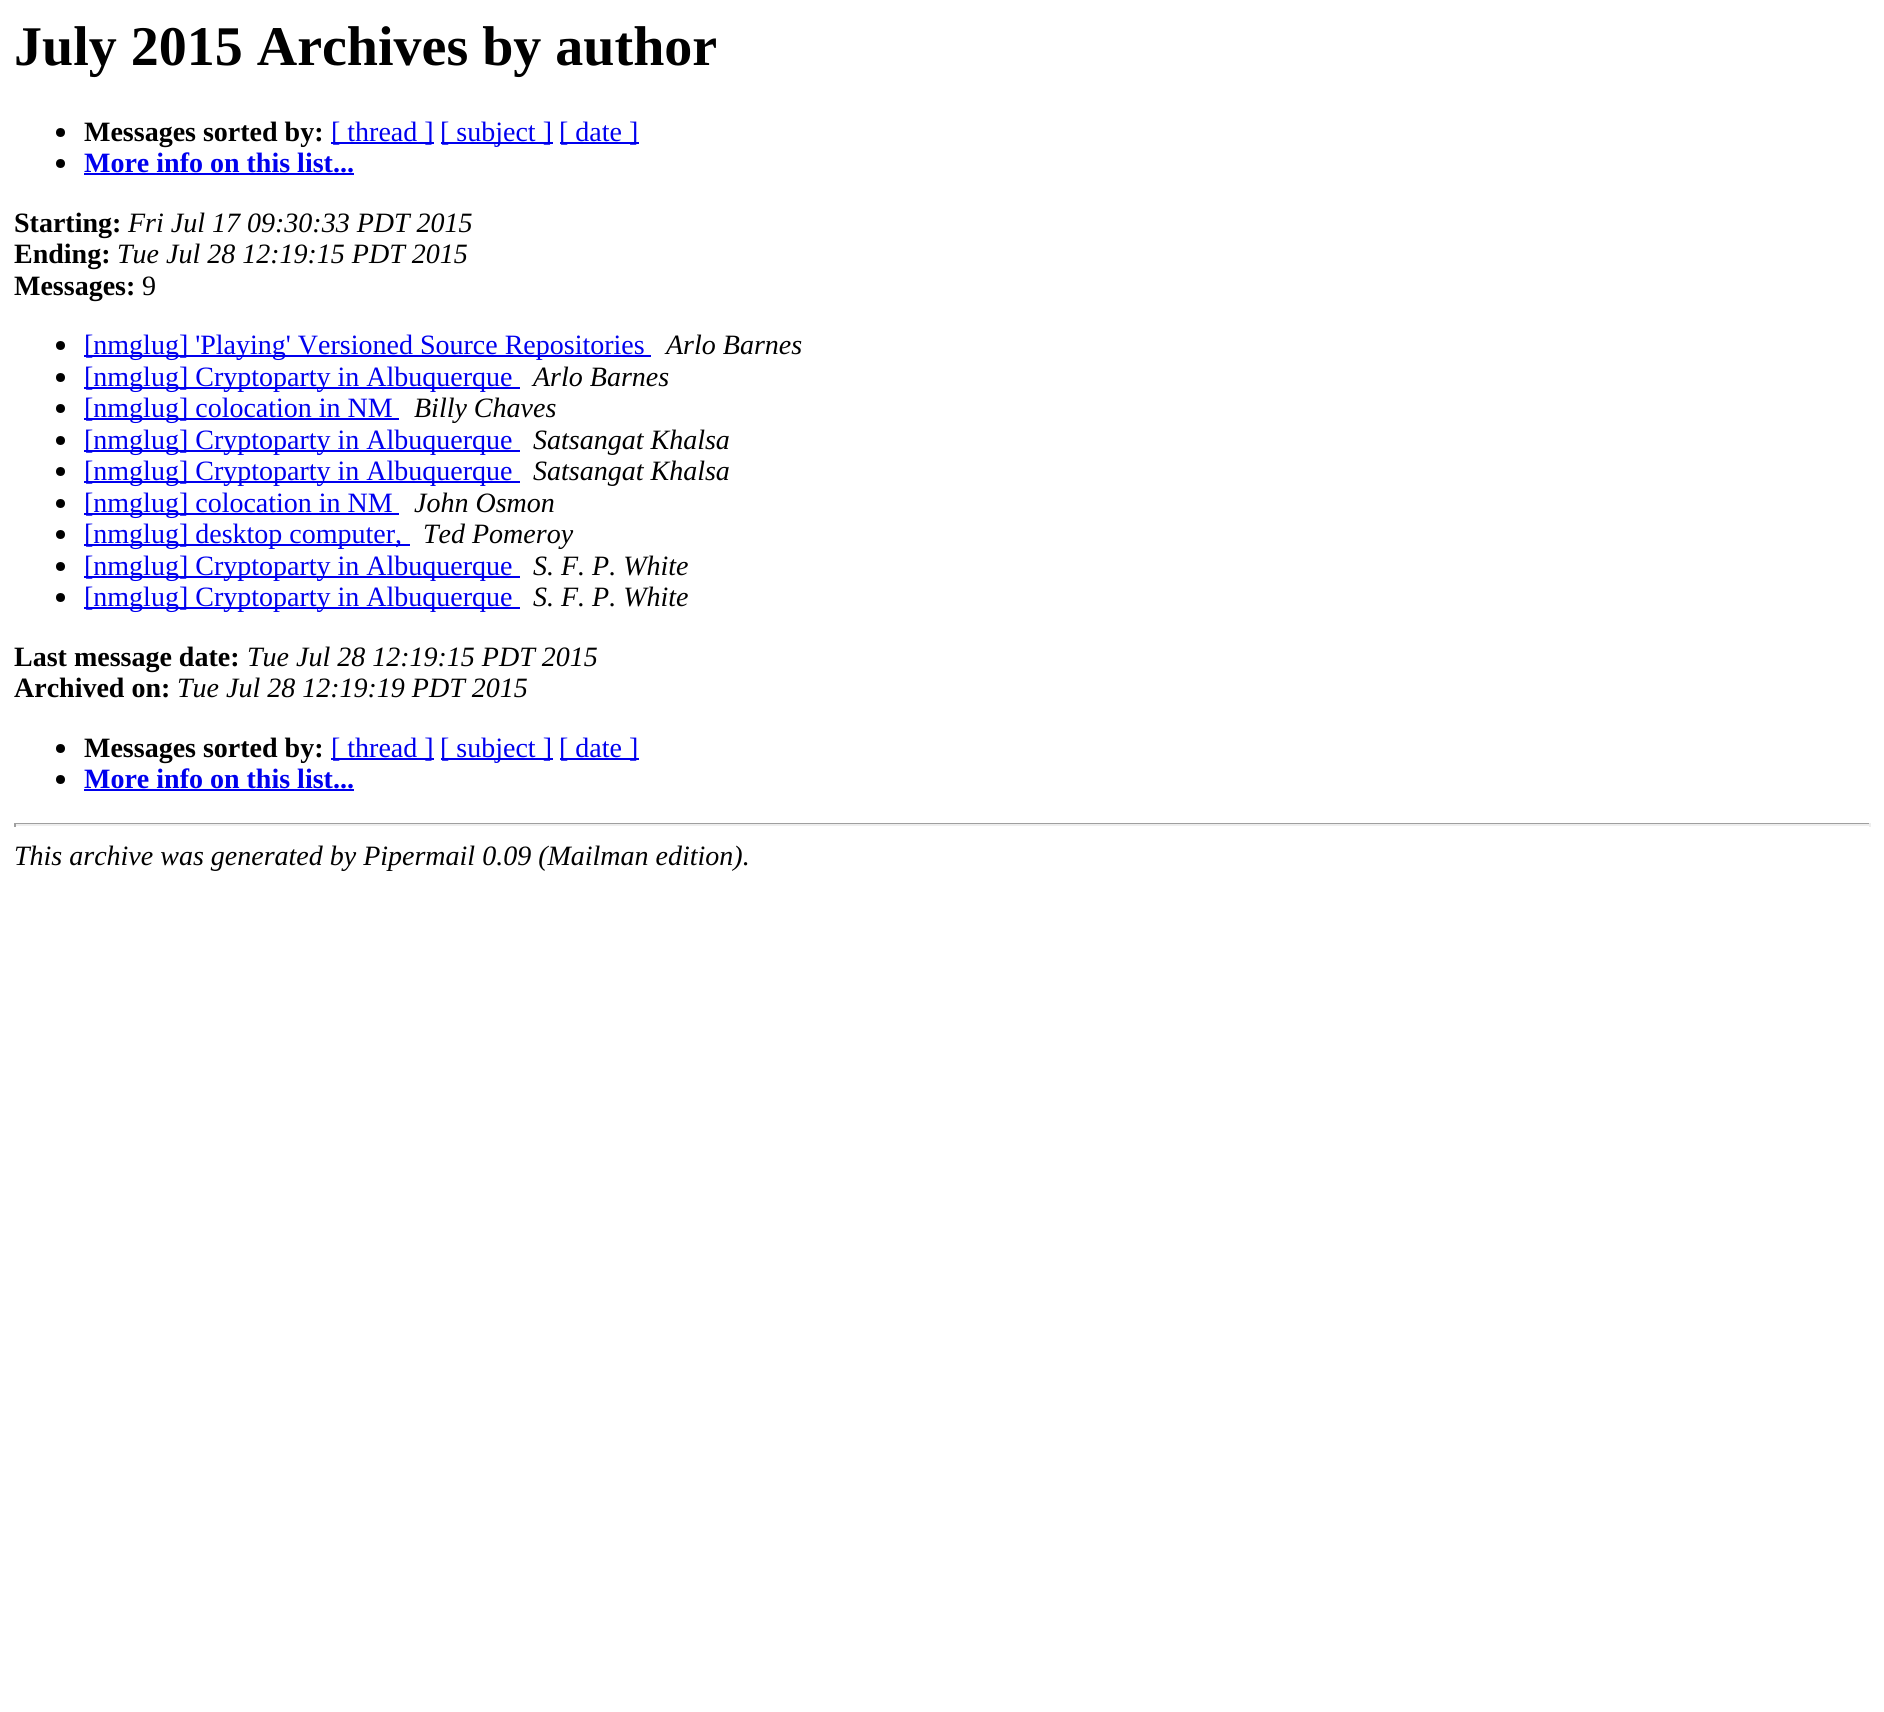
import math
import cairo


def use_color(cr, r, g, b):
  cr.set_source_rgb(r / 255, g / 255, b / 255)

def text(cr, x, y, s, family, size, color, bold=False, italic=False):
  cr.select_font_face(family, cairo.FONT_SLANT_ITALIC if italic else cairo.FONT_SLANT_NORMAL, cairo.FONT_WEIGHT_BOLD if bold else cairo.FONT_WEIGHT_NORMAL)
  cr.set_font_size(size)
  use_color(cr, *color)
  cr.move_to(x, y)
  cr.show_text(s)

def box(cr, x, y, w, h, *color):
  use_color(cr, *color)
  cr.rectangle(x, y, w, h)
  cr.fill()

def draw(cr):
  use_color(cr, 255, 255, 255)
  cr.paint()
  use_color(cr, 0, 0, 0)
  cr.arc(60.5, 132.5, 4.5, 0, 2 * math.pi)
  cr.fill()
  box(cr, 331, 142, 103, 2, 0, 0, 238)
  box(cr, 441, 142, 112, 2, 0, 0, 238)
  box(cr, 560, 142, 79, 2, 0, 0, 238)
  use_color(cr, 0, 0, 0)
  cr.arc(60.5, 163.5, 4.5, 0, 2 * math.pi)
  cr.fill()
  box(cr, 84, 173, 270, 2, 0, 0, 238)
  use_color(cr, 0, 0, 0)
  cr.arc(60.5, 345.5, 4.5, 0, 2 * math.pi)
  cr.fill()
  box(cr, 84, 355, 567, 2, 0, 0, 238)
  use_color(cr, 0, 0, 0)
  cr.arc(60.5, 377.5, 4.5, 0, 2 * math.pi)
  cr.fill()
  box(cr, 84, 387, 436, 2, 0, 0, 238)
  use_color(cr, 0, 0, 0)
  cr.arc(60.5, 408.5, 4.5, 0, 2 * math.pi)
  cr.fill()
  box(cr, 84, 418, 315, 2, 0, 0, 238)
  use_color(cr, 0, 0, 0)
  cr.arc(60.5, 440.5, 4.5, 0, 2 * math.pi)
  cr.fill()
  box(cr, 84, 450, 436, 2, 0, 0, 238)
  use_color(cr, 0, 0, 0)
  cr.arc(60.5, 471.5, 4.5, 0, 2 * math.pi)
  cr.fill()
  box(cr, 84, 481, 436, 2, 0, 0, 238)
  use_color(cr, 0, 0, 0)
  cr.arc(60.5, 503.5, 4.5, 0, 2 * math.pi)
  cr.fill()
  box(cr, 84, 513, 315, 2, 0, 0, 238)
  use_color(cr, 0, 0, 0)
  cr.arc(60.5, 534.5, 4.5, 0, 2 * math.pi)
  cr.fill()
  box(cr, 84, 544, 326, 2, 0, 0, 238)
  use_color(cr, 0, 0, 0)
  cr.arc(60.5, 566.5, 4.5, 0, 2 * math.pi)
  cr.fill()
  box(cr, 84, 576, 436, 2, 0, 0, 238)
  use_color(cr, 0, 0, 0)
  cr.arc(60.5, 597.5, 4.5, 0, 2 * math.pi)
  cr.fill()
  box(cr, 84, 607, 436, 2, 0, 0, 238)
  use_color(cr, 0, 0, 0)
  cr.arc(60.5, 748.5, 4.5, 0, 2 * math.pi)
  cr.fill()
  box(cr, 331, 758, 103, 2, 0, 0, 238)
  box(cr, 441, 758, 112, 2, 0, 0, 238)
  box(cr, 560, 758, 79, 2, 0, 0, 238)
  use_color(cr, 0, 0, 0)
  cr.arc(60.5, 779.5, 4.5, 0, 2 * math.pi)
  cr.fill()
  box(cr, 84, 789, 270, 2, 0, 0, 238)
  box(cr, 14, 823, 1857, 1, 159, 159, 159)
  box(cr, 1869, 823, 2, 4, 238, 238, 238)
  box(cr, 14, 824, 1857, 2, 238, 238, 238)
  box(cr, 14, 823, 2, 4, 159, 159, 159)
  text(cr, 14, 65, "July 2015 Archives by author", "Liberation Serif", 56, (0, 0, 0), bold=True)
  text(cr, 84, 141, "Messages sorted by:", "Liberation Serif", 28, (0, 0, 0), bold=True)
  text(cr, 331, 141, "[ thread ]", "Liberation Serif", 28, (0, 0, 238))
  text(cr, 440, 141, "[ subject ]", "Liberation Serif", 28, (0, 0, 238))
  text(cr, 559, 141, "[ date ]", "Liberation Serif", 28, (0, 0, 238))
  text(cr, 84, 172, "More info on this list...", "Liberation Serif", 28, (0, 0, 238), bold=True)
  text(cr, 14, 232, "Starting:", "Liberation Serif", 28, (0, 0, 0), bold=True)
  text(cr, 128, 232, "Fri Jul 17 09:30:33 PDT 2015", "Liberation Serif", 28, (0, 0, 0), italic=True)
  text(cr, 14, 263, "Ending:", "Liberation Serif", 28, (0, 0, 0), bold=True)
  text(cr, 117, 263, "Tue Jul 28 12:19:15 PDT 2015", "Liberation Serif", 28, (0, 0, 0), italic=True)
  text(cr, 14, 295, "Messages:", "Liberation Serif", 28, (0, 0, 0), bold=True)
  text(cr, 142, 295, "9", "Liberation Serif", 28, (0, 0, 0))
  text(cr, 84, 354, "[nmglug] 'Playing' Versioned Source Repositories", "Liberation Serif", 28, (0, 0, 238))
  text(cr, 666, 354, "Arlo Barnes", "Liberation Serif", 28, (0, 0, 0), italic=True)
  text(cr, 84, 386, "[nmglug] Cryptoparty in Albuquerque", "Liberation Serif", 28, (0, 0, 238))
  text(cr, 533, 386, "Arlo Barnes", "Liberation Serif", 28, (0, 0, 0), italic=True)
  text(cr, 84, 417, "[nmglug] colocation in NM", "Liberation Serif", 28, (0, 0, 238))
  text(cr, 414, 417, "Billy Chaves", "Liberation Serif", 28, (0, 0, 0), italic=True)
  text(cr, 84, 449, "[nmglug] Cryptoparty in Albuquerque", "Liberation Serif", 28, (0, 0, 238))
  text(cr, 533, 449, "Satsangat Khalsa", "Liberation Serif", 28, (0, 0, 0), italic=True)
  text(cr, 84, 480, "[nmglug] Cryptoparty in Albuquerque", "Liberation Serif", 28, (0, 0, 238))
  text(cr, 533, 480, "Satsangat Khalsa", "Liberation Serif", 28, (0, 0, 0), italic=True)
  text(cr, 84, 512, "[nmglug] colocation in NM", "Liberation Serif", 28, (0, 0, 238))
  text(cr, 414, 512, "John Osmon", "Liberation Serif", 28, (0, 0, 0), italic=True)
  text(cr, 84, 543, "[nmglug] desktop computer,", "Liberation Serif", 28, (0, 0, 238))
  text(cr, 423, 543, "Ted Pomeroy", "Liberation Serif", 28, (0, 0, 0), italic=True)
  text(cr, 84, 575, "[nmglug] Cryptoparty in Albuquerque", "Liberation Serif", 28, (0, 0, 238))
  text(cr, 533, 575, "S. F. P. White", "Liberation Serif", 28, (0, 0, 0), italic=True)
  text(cr, 84, 606, "[nmglug] Cryptoparty in Albuquerque", "Liberation Serif", 28, (0, 0, 238))
  text(cr, 533, 606, "S. F. P. White", "Liberation Serif", 28, (0, 0, 0), italic=True)
  text(cr, 14, 666, "Last message date:", "Liberation Serif", 28, (0, 0, 0), bold=True)
  text(cr, 247, 666, "Tue Jul 28 12:19:15 PDT 2015", "Liberation Serif", 28, (0, 0, 0), italic=True)
  text(cr, 14, 697, "Archived on:", "Liberation Serif", 28, (0, 0, 0), bold=True)
  text(cr, 177, 697, "Tue Jul 28 12:19:19 PDT 2015", "Liberation Serif", 28, (0, 0, 0), italic=True)
  text(cr, 84, 757, "Messages sorted by:", "Liberation Serif", 28, (0, 0, 0), bold=True)
  text(cr, 331, 757, "[ thread ]", "Liberation Serif", 28, (0, 0, 238))
  text(cr, 440, 757, "[ subject ]", "Liberation Serif", 28, (0, 0, 238))
  text(cr, 559, 757, "[ date ]", "Liberation Serif", 28, (0, 0, 238))
  text(cr, 84, 788, "More info on this list...", "Liberation Serif", 28, (0, 0, 238), bold=True)
  text(cr, 14, 865, "This archive was generated by Pipermail 0.09 (Mailman edition).", "Liberation Serif", 28, (0, 0, 0), italic=True)


surface = cairo.ImageSurface(cairo.FORMAT_RGB24, 1884, 1712)
cr = cairo.Context(surface)
options = cairo.FontOptions()
options.set_hint_metrics(cairo.HINT_METRICS_OFF)
options.set_hint_style(cairo.HINT_STYLE_NONE)
cr.set_font_options(options)
cr.set_miter_limit(4)
draw(cr)
surface.write_to_png("out.png")
